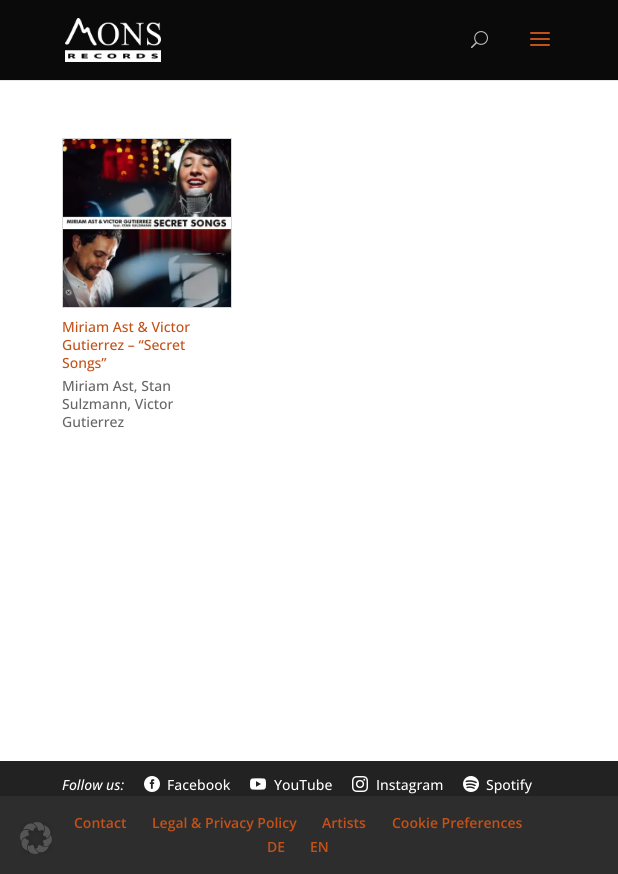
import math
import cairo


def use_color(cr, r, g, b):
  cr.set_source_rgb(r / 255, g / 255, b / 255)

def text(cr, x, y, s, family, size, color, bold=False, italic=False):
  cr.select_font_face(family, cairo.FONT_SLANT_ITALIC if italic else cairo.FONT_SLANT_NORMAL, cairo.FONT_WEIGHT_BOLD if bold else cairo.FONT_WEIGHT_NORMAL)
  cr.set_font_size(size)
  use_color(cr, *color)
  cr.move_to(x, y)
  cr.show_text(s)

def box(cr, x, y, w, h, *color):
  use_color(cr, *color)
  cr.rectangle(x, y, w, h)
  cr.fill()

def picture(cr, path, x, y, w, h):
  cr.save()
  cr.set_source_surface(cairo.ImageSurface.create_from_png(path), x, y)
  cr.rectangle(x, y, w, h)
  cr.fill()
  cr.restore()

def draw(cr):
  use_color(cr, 255, 255, 255)
  cr.paint()
  box(cr, 0, 796, 618, 78, 45, 45, 45)
  picture(cr, "img_01.png", 20, 822, 32, 32)
  box(cr, 0, 80, 618, 1, 230, 230, 230)
  box(cr, 0, 0, 618, 80, 10, 10, 10)
  picture(cr, "img_02.png", 65, 18, 96, 44)
  picture(cr, "img_03.png", 471, 31, 17, 18)
  picture(cr, "img_04.png", 530, 32, 20, 14)
  cr.rectangle(62.5, 138.5, 169, 169)
  use_color(cr, 214, 214, 214)
  cr.set_line_width(1)
  cr.stroke()
  picture(cr, "img_05.png", 63, 139, 168, 168)
  box(cr, 0, 761, 618, 35, 34, 34, 34)
  picture(cr, "img_06.png", 144, 776, 16, 16)
  picture(cr, "img_07.png", 250, 778, 16, 12)
  picture(cr, "img_08.png", 352, 776, 16, 16)
  picture(cr, "img_09.png", 463, 776, 16, 16)
  text(cr, 62, 332, "Miriam Ast & Victor", "Open Sans Medium", 14, (195, 81, 24))
  text(cr, 62, 350, "Gutierrez – “Secret", "Open Sans Medium", 14, (195, 81, 24))
  text(cr, 62, 368, "Songs”", "Open Sans Medium", 14, (195, 81, 24))
  text(cr, 62, 391, "Miriam Ast, Stan", "Open Sans Medium", 14, (102, 102, 102))
  text(cr, 62, 409, "Sulzmann, Victor", "Open Sans Medium", 14, (102, 102, 102))
  text(cr, 62, 427, "Gutierrez", "Open Sans Medium", 14, (102, 102, 102))
  text(cr, 62, 790, "Follow us:", "Open Sans Medium", 14, (255, 255, 255), italic=True)
  text(cr, 167, 790, "Facebook", "Open Sans Medium", 14, (255, 255, 255))
  text(cr, 274, 790, "YouTube", "Open Sans Medium", 14, (255, 255, 255))
  text(cr, 376, 790, "Instagram", "Open Sans Medium", 14, (255, 255, 255))
  text(cr, 486, 790, "Spotify", "Open Sans Medium", 14, (255, 255, 255))
  text(cr, 74, 828, "Contact", "Open Sans SemiBold", 14, (195, 81, 24))
  text(cr, 152, 828, "Legal & Privacy Policy", "Open Sans SemiBold", 14, (195, 81, 24))
  text(cr, 322, 828, "Artists", "Open Sans SemiBold", 14, (195, 81, 24))
  text(cr, 392, 828, "Cookie Preferences", "Open Sans SemiBold", 14, (195, 81, 24))
  text(cr, 267, 852, "DE", "Open Sans SemiBold", 14, (195, 81, 24))
  text(cr, 310, 852, "EN", "Open Sans SemiBold", 14, (195, 81, 24))


surface = cairo.ImageSurface(cairo.FORMAT_RGB24, 618, 874)
cr = cairo.Context(surface)
options = cairo.FontOptions()
options.set_hint_metrics(cairo.HINT_METRICS_OFF)
options.set_hint_style(cairo.HINT_STYLE_NONE)
cr.set_font_options(options)
cr.set_miter_limit(4)
draw(cr)
surface.write_to_png("out.png")
